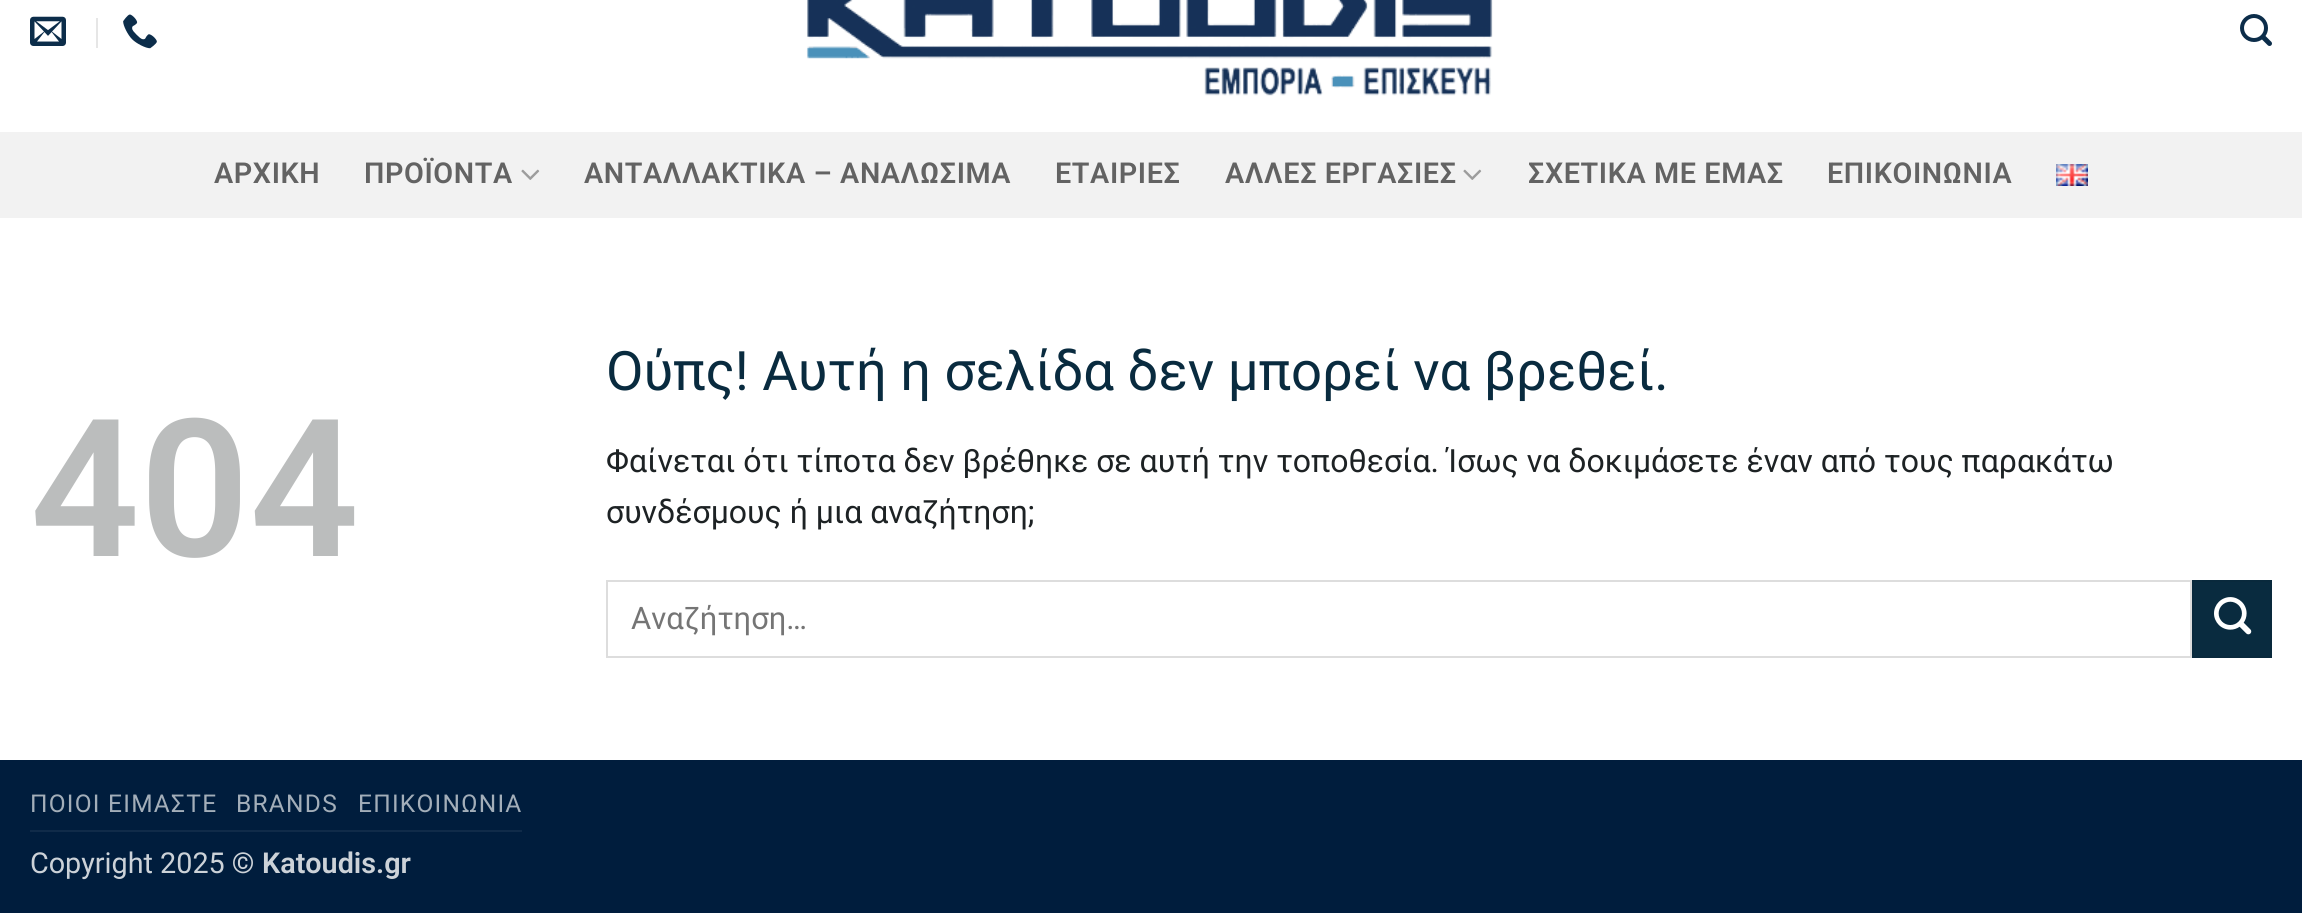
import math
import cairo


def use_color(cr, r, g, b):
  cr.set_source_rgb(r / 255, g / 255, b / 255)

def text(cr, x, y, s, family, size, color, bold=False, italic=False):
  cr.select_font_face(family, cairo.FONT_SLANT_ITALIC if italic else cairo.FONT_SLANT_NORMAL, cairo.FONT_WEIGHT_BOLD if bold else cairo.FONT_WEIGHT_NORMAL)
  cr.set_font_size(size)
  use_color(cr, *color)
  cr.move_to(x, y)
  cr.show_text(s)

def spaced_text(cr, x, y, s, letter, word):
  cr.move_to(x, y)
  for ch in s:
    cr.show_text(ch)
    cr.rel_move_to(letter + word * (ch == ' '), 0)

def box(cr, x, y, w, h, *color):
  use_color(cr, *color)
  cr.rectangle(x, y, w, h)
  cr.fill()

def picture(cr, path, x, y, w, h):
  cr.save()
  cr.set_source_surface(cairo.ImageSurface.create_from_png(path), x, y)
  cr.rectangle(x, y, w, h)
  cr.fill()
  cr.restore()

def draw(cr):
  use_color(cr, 255, 255, 255)
  cr.paint()
  picture(cr, "img_01.png", 30, 16, 36, 30)
  box(cr, 96, 18, 2, 30, 230, 230, 230)
  picture(cr, "img_02.png", 123, 14, 34, 35)
  picture(cr, "img_03.png", 806, 0, 687, 96)
  picture(cr, "img_04.png", 2240, 14, 32, 32)
  box(cr, 0, 132, 2302, 86, 242, 242, 242)
  picture(cr, "img_05.png", 521, 169, 19, 11)
  picture(cr, "img_05.png", 1463, 169, 19, 11)
  picture(cr, "img_06.png", 2056, 164, 32, 22)
  cr.rectangle(607, 581, 1584, 76)
  use_color(cr, 221, 221, 221)
  cr.stroke()
  use_color(cr, 9, 43, 63)
  cr.rectangle(2193, 581, 78, 76)
  cr.fill_preserve()
  use_color(cr, 9, 41, 60)
  cr.stroke()
  picture(cr, "img_07.png", 2214, 597, 38, 38)
  box(cr, 0, 760, 2302, 153, 0, 29, 61)
  box(cr, 30, 830, 492, 2, 16, 43, 73)
  cr.select_font_face("Roboto SemiBold")
  cr.set_font_size(28.75)
  use_color(cr, 99, 99, 99)
  spaced_text(cr, 214, 183, "ΑΡΧΙΚΗ", 0.6, 0)
  spaced_text(cr, 364, 183, "ΠΡΟΪΟΝΤΑ", 0.6, 0)
  spaced_text(cr, 584, 183, "ΑΝΤΑΛΛΑΚΤΙΚΑ – ΑΝΑΛΩΣΙΜΑ", 0.6, 0)
  spaced_text(cr, 1055, 183, "ΕΤΑΙΡΙΕΣ", 0.6, 0)
  spaced_text(cr, 1225, 183, "ΑΛΛΕΣ ΕΡΓΑΣΙΕΣ", 0.6, 0)
  spaced_text(cr, 1528, 183, "ΣΧΕΤΙΚΑ ΜΕ ΕΜΑΣ", 0.6, 0)
  spaced_text(cr, 1827, 183, "ΕΠΙΚΟΙΝΩΝΙΑ", 0.6, 0)
  text(cr, 30, 556, "404", "Roboto SemiBold", 192, (187, 189, 189))
  text(cr, 606, 390, "Ούπς! Αυτή η σελίδα δεν μπορεί να βρεθεί.", "Roboto", 54.4, (9, 43, 63))
  text(cr, 606, 472, "Φαίνεται ότι τίποτα δεν βρέθηκε σε αυτή την τοποθεσία. Ίσως να δοκιμάσετε έναν από τους παρακάτω", "Roboto", 32, (29, 34, 36))
  text(cr, 606, 523, "συνδέσμους ή μια αναζήτηση;", "Roboto", 32, (29, 34, 36))
  text(cr, 631, 629, "Αναζήτηση…", "Roboto", 31, (117, 117, 117))
  cr.set_font_size(24.5)
  use_color(cr, 163, 174, 185)
  spaced_text(cr, 30, 812, "ΠΟΙΟΙ ΕΙΜΑΣΤΕ", 1.25, 0)
  spaced_text(cr, 236, 812, "BRANDS", 1.25, 0)
  spaced_text(cr, 358, 812, "ΕΠΙΚΟΙΝΩΝΙΑ", 1.25, 0)
  text(cr, 30, 873, "Copyright 2025 ©", "Roboto", 28.75, (204, 210, 216))
  text(cr, 262, 873, "Katoudis.gr", "Roboto SemiBold", 28.75, (204, 210, 216))


surface = cairo.ImageSurface(cairo.FORMAT_RGB24, 2302, 913)
cr = cairo.Context(surface)
options = cairo.FontOptions()
options.set_hint_metrics(cairo.HINT_METRICS_OFF)
options.set_hint_style(cairo.HINT_STYLE_NONE)
cr.set_font_options(options)
cr.set_miter_limit(4)
draw(cr)
surface.write_to_png("out.png")
